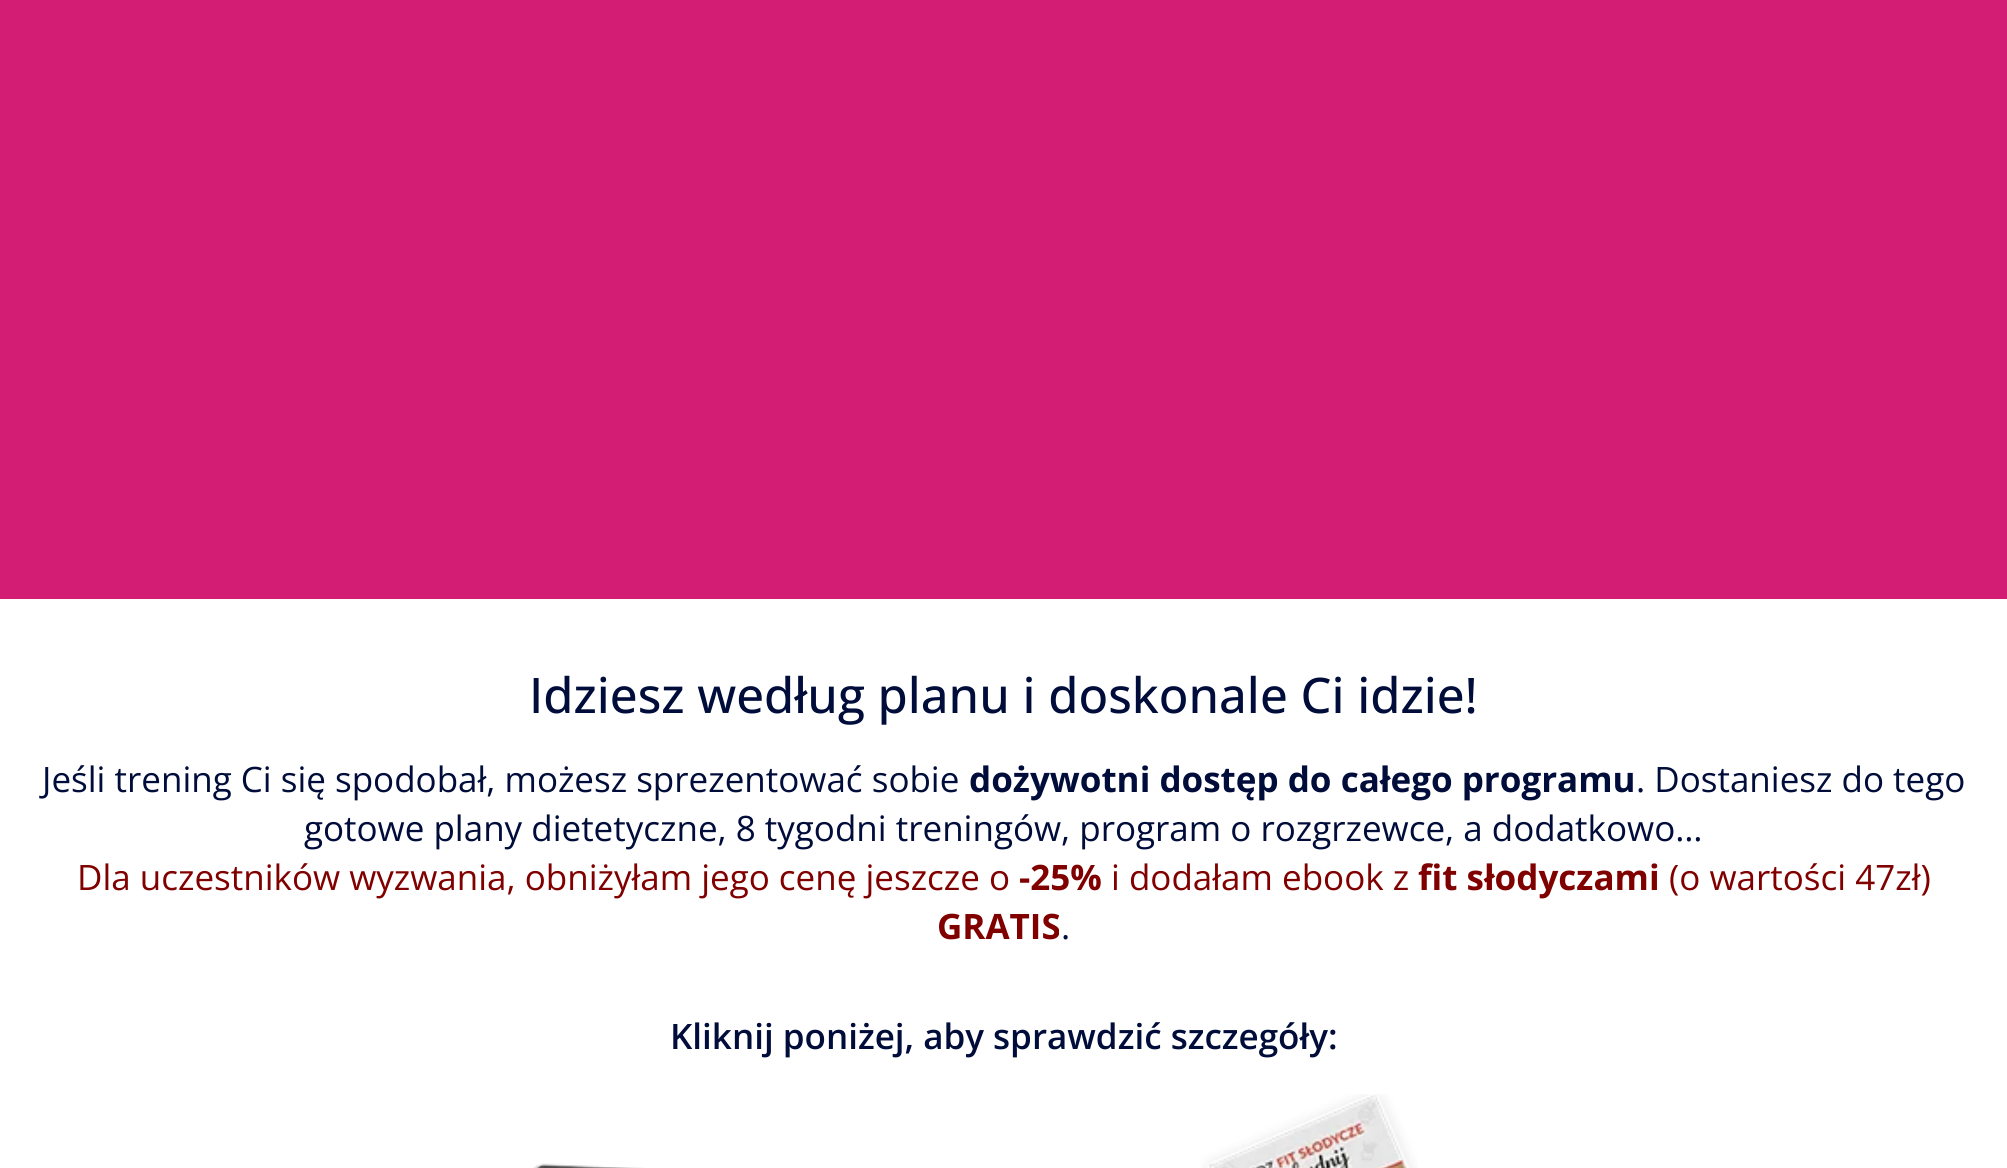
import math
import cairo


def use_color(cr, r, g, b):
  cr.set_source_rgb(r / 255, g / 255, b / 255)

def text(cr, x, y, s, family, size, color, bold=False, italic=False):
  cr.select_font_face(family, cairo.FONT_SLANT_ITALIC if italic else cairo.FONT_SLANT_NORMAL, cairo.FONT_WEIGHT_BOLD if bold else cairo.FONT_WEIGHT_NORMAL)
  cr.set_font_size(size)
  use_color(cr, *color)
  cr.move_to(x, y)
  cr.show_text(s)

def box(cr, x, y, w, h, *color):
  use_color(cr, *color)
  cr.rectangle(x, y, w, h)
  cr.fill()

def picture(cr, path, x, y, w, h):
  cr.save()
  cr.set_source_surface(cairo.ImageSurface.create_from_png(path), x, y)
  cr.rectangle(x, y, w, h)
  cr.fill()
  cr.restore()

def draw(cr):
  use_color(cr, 255, 255, 255)
  cr.paint()
  box(cr, 0, 0, 2007, 599, 211, 28, 116)
  picture(cr, "img_01.png", 533, 1094, 885, 74)
  text(cr, 529, 713, "Idziesz według planu i doskonale Ci idzie!", "Open Sans Medium", 49, (0, 12, 58))
  text(cr, 42, 792, "Jeśli trening Ci się spodobał, możesz sprezentować sobie", "Open Sans", 35, (0, 12, 58))
  text(cr, 969, 792, "dożywotni dostęp do całego programu", "Open Sans", 35, (0, 12, 58), bold=True)
  text(cr, 1636, 792, ". Dostaniesz do tego", "Open Sans", 35, (0, 12, 58))
  text(cr, 304, 841, "gotowe plany dietetyczne, 8 tygodni treningów, program o rozgrzewce, a dodatkowo…", "Open Sans", 35, (0, 12, 58))
  text(cr, 77, 890, "Dla uczestników wyzwania, obniżyłam jego cenę jeszcze o", "Open Sans", 35, (128, 0, 0))
  text(cr, 1019, 890, "-25%", "Open Sans", 35, (128, 0, 0), bold=True)
  text(cr, 1111, 890, "i dodałam ebook z", "Open Sans", 35, (128, 0, 0))
  text(cr, 1418, 890, "fit słodyczami", "Open Sans", 35, (128, 0, 0), bold=True)
  text(cr, 1669, 890, "(o wartości 47zł)", "Open Sans", 35, (128, 0, 0))
  text(cr, 937, 939, "GRATIS", "Open Sans", 35, (128, 0, 0), bold=True)
  text(cr, 1061, 939, ".", "Open Sans", 35, (0, 12, 58))
  text(cr, 670, 1049, "Kliknij poniżej, aby sprawdzić szczegóły:", "Open Sans SemiBold", 35, (0, 12, 58))


surface = cairo.ImageSurface(cairo.FORMAT_RGB24, 2007, 1168)
cr = cairo.Context(surface)
options = cairo.FontOptions()
options.set_hint_metrics(cairo.HINT_METRICS_OFF)
options.set_hint_style(cairo.HINT_STYLE_NONE)
cr.set_font_options(options)
cr.set_miter_limit(4)
draw(cr)
surface.write_to_png("out.png")
